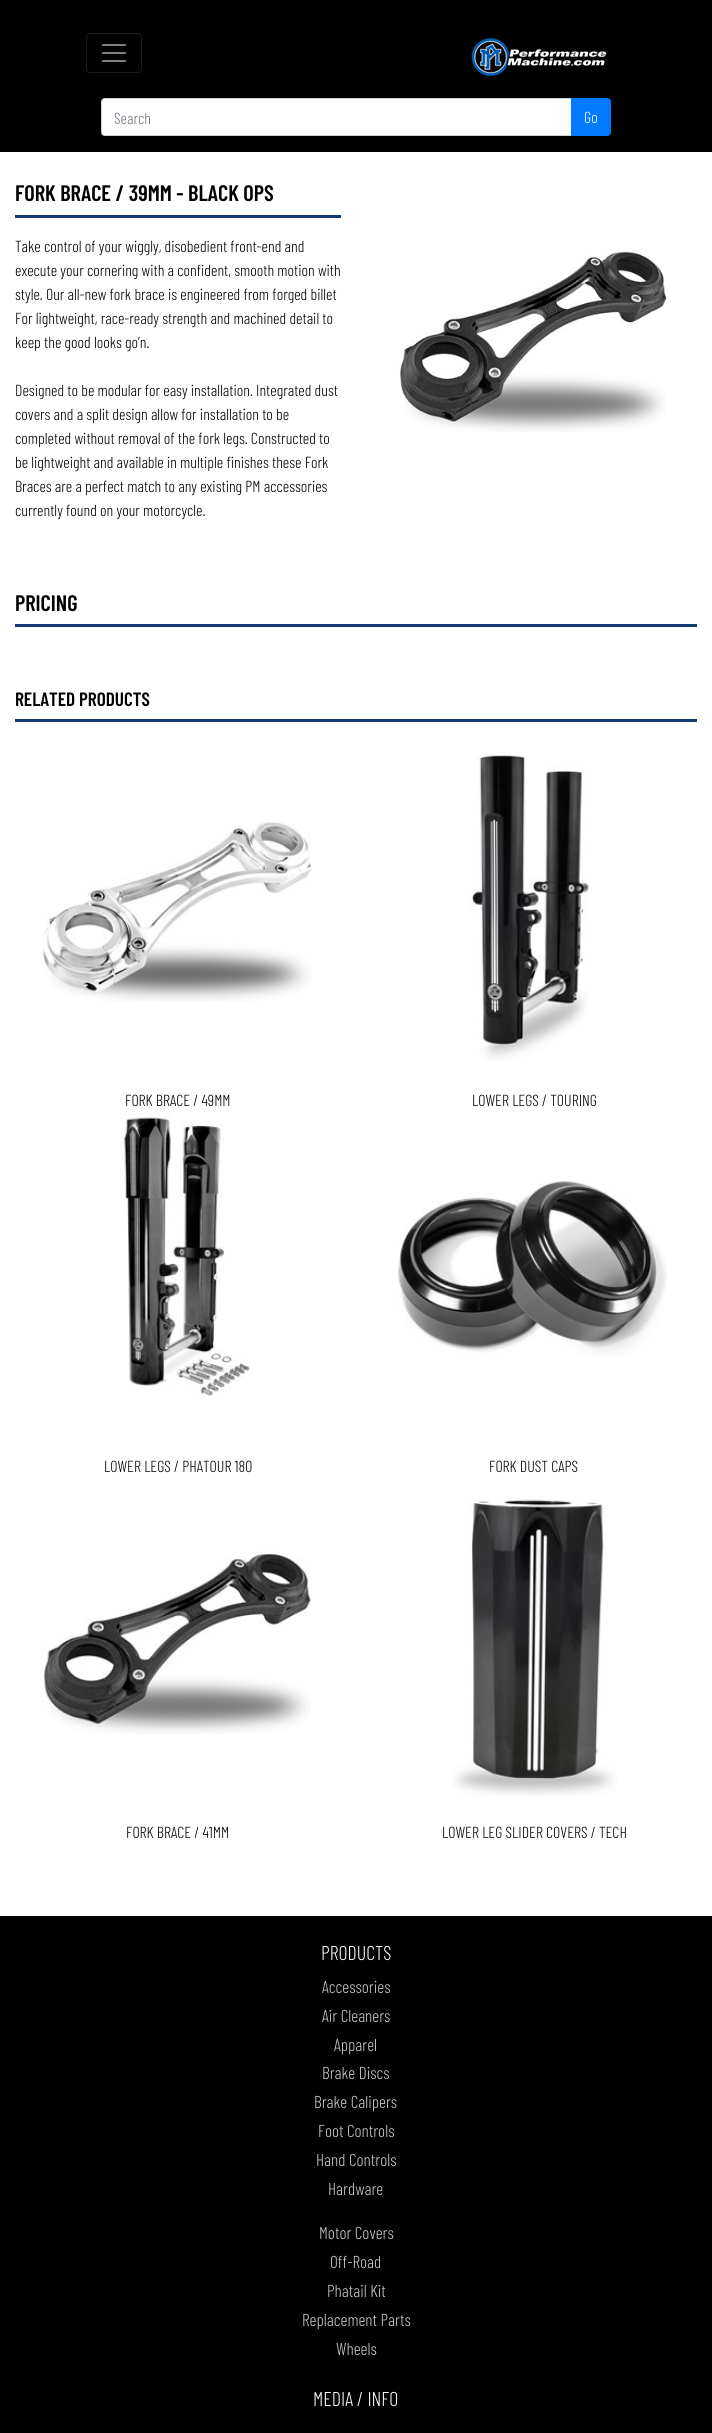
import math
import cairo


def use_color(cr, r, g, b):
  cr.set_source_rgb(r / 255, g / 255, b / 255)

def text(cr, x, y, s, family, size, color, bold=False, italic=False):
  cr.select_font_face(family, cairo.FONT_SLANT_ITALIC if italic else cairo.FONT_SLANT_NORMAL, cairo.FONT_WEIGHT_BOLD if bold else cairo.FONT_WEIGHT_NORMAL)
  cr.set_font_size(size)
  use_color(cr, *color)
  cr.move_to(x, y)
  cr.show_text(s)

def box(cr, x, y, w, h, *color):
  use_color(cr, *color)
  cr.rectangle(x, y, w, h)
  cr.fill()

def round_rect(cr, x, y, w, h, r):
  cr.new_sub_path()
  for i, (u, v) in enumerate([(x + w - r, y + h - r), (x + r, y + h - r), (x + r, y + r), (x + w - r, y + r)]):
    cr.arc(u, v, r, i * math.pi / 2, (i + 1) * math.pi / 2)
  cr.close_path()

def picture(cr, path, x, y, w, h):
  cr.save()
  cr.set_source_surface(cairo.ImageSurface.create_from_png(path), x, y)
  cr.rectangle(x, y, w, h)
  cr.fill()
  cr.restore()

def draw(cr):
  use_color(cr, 0, 0, 0)
  cr.paint()
  round_rect(cr, 86.5, 33.5, 55, 39, 3.5)
  use_color(cr, 26, 26, 26)
  cr.set_line_width(1)
  cr.stroke()
  picture(cr, "img_01.png", 102, 44, 24, 18)
  picture(cr, "img_02.png", 471, 38, 136, 38)
  use_color(cr, 255, 255, 255)
  cr.new_path()
  cr.move_to(105, 98.5)
  cr.line_to(571.5, 98.5)
  cr.line_to(571.5, 135.5)
  cr.line_to(105, 135.5)
  cr.curve_to(103, 135.5, 101.5, 134, 101.5, 132)
  cr.line_to(101.5, 102)
  cr.curve_to(101.5, 100, 103, 98.5, 105, 98.5)
  cr.close_path()
  cr.fill_preserve()
  use_color(cr, 206, 212, 218)
  cr.stroke()
  use_color(cr, 0, 123, 255)
  cr.new_path()
  cr.move_to(571.5, 98.5)
  cr.line_to(607, 98.5)
  cr.curve_to(609, 98.5, 610.5, 100, 610.5, 102)
  cr.line_to(610.5, 132)
  cr.curve_to(610.5, 134, 609, 135.5, 607, 135.5)
  cr.line_to(571.5, 135.5)
  cr.close_path()
  cr.fill_preserve()
  cr.stroke()
  box(cr, 0, 152, 712, 1764, 255, 255, 255)
  box(cr, 15, 215, 326, 3, 18, 56, 118)
  picture(cr, "img_03.png", 398, 251, 269, 181)
  box(cr, 15, 624, 682, 3, 18, 56, 118)
  box(cr, 15, 719, 682, 3, 18, 56, 118)
  picture(cr, "img_04.png", 43, 822, 269, 180)
  picture(cr, "img_05.png", 468, 755, 121, 306)
  picture(cr, "img_06.png", 120, 1112, 130, 287)
  picture(cr, "img_07.png", 398, 1181, 269, 175)
  picture(cr, "img_08.png", 41, 1550, 270, 184)
  picture(cr, "img_09.png", 452, 1499, 165, 298)
  text(cr, 114, 124, "Search", "Barlow Condensed Light", 16, (108, 117, 125))
  text(cr, 584, 123, "Go", "Barlow Condensed Light", 16, (255, 255, 255))
  text(cr, 15, 201, "FORK BRACE / 39MM - BLACK OPS", "Barlow Condensed SemiBold", 22.4, (0, 0, 0))
  text(cr, 15, 252, "Take control of your wiggly, disobedient front-end and", "Barlow Condensed Light", 16, (0, 0, 0))
  text(cr, 15, 276, "execute your cornering with a confident, smooth motion with", "Barlow Condensed Light", 16, (0, 0, 0))
  text(cr, 15, 300, "style. Our all-new fork brace is engineered from forged billet", "Barlow Condensed Light", 16, (0, 0, 0))
  text(cr, 15, 324, "For lightweight, race-ready strength and machined detail to", "Barlow Condensed Light", 16, (0, 0, 0))
  text(cr, 15, 348, "keep the good looks go’n.", "Barlow Condensed Light", 16, (0, 0, 0))
  text(cr, 15, 396, "Designed to be modular for easy installation. Integrated dust", "Barlow Condensed Light", 16, (0, 0, 0))
  text(cr, 15, 420, "covers and a split design allow for installation to be", "Barlow Condensed Light", 16, (0, 0, 0))
  text(cr, 15, 444, "completed without removal of the fork legs. Constructed to", "Barlow Condensed Light", 16, (0, 0, 0))
  text(cr, 15, 468, "be lightweight and available in multiple finishes these Fork", "Barlow Condensed Light", 16, (0, 0, 0))
  text(cr, 15, 492, "Braces are a perfect match to any existing PM accessories", "Barlow Condensed Light", 16, (0, 0, 0))
  text(cr, 15, 516, "currently found on your motorcycle.", "Barlow Condensed Light", 16, (0, 0, 0))
  text(cr, 15, 611, "PRICING", "Barlow Condensed SemiBold", 22.4, (0, 0, 0))
  text(cr, 15, 706, "RELATED PRODUCTS", "Barlow Condensed SemiBold", 19.25, (0, 0, 0))
  text(cr, 125, 1106, "FORK BRACE / 49MM", "Barlow Condensed Light", 16, (0, 0, 0))
  text(cr, 472, 1106, "LOWER LEGS / TOURING", "Barlow Condensed Light", 16, (0, 0, 0))
  text(cr, 104, 1472, "LOWER LEGS / PHATOUR 180", "Barlow Condensed Light", 16, (0, 0, 0))
  text(cr, 489, 1472, "FORK DUST CAPS", "Barlow Condensed Light", 16, (0, 0, 0))
  text(cr, 126, 1838, "FORK BRACE / 41MM", "Barlow Condensed Light", 16, (0, 0, 0))
  text(cr, 442, 1838, "LOWER LEG SLIDER COVERS / TECH", "Barlow Condensed Light", 16, (0, 0, 0))
  text(cr, 321, 1960, "PRODUCTS", "Barlow Condensed Light", 20, (255, 255, 255))
  text(cr, 322, 1993, "Accessories", "Barlow Condensed Light", 17.25, (204, 204, 204))
  text(cr, 322, 2022, "Air Cleaners", "Barlow Condensed Light", 17.25, (204, 204, 204))
  text(cr, 334, 2051, "Apparel", "Barlow Condensed Light", 17.25, (204, 204, 204))
  text(cr, 322, 2079, "Brake Discs", "Barlow Condensed Light", 17.25, (204, 204, 204))
  text(cr, 314, 2108, "Brake Calipers", "Barlow Condensed Light", 17.25, (204, 204, 204))
  text(cr, 318, 2137, "Foot Controls", "Barlow Condensed Light", 17.25, (204, 204, 204))
  text(cr, 316, 2166, "Hand Controls", "Barlow Condensed Light", 17.25, (204, 204, 204))
  text(cr, 328, 2195, "Hardware", "Barlow Condensed Light", 17.25, (204, 204, 204))
  text(cr, 319, 2239, "Motor Covers", "Barlow Condensed Light", 17.25, (204, 204, 204))
  text(cr, 330, 2268, "Off-Road", "Barlow Condensed Light", 17.25, (204, 204, 204))
  text(cr, 327, 2297, "Phatail Kit", "Barlow Condensed Light", 17.25, (204, 204, 204))
  text(cr, 302, 2326, "Replacement Parts", "Barlow Condensed Light", 17.25, (204, 204, 204))
  text(cr, 336, 2355, "Wheels", "Barlow Condensed Light", 17.25, (204, 204, 204))
  text(cr, 313, 2406, "MEDIA / INFO", "Barlow Condensed Light", 20, (255, 255, 255))


surface = cairo.ImageSurface(cairo.FORMAT_RGB24, 712, 2433)
cr = cairo.Context(surface)
options = cairo.FontOptions()
options.set_hint_metrics(cairo.HINT_METRICS_OFF)
options.set_hint_style(cairo.HINT_STYLE_NONE)
cr.set_font_options(options)
cr.set_miter_limit(4)
draw(cr)
surface.write_to_png("out.png")
